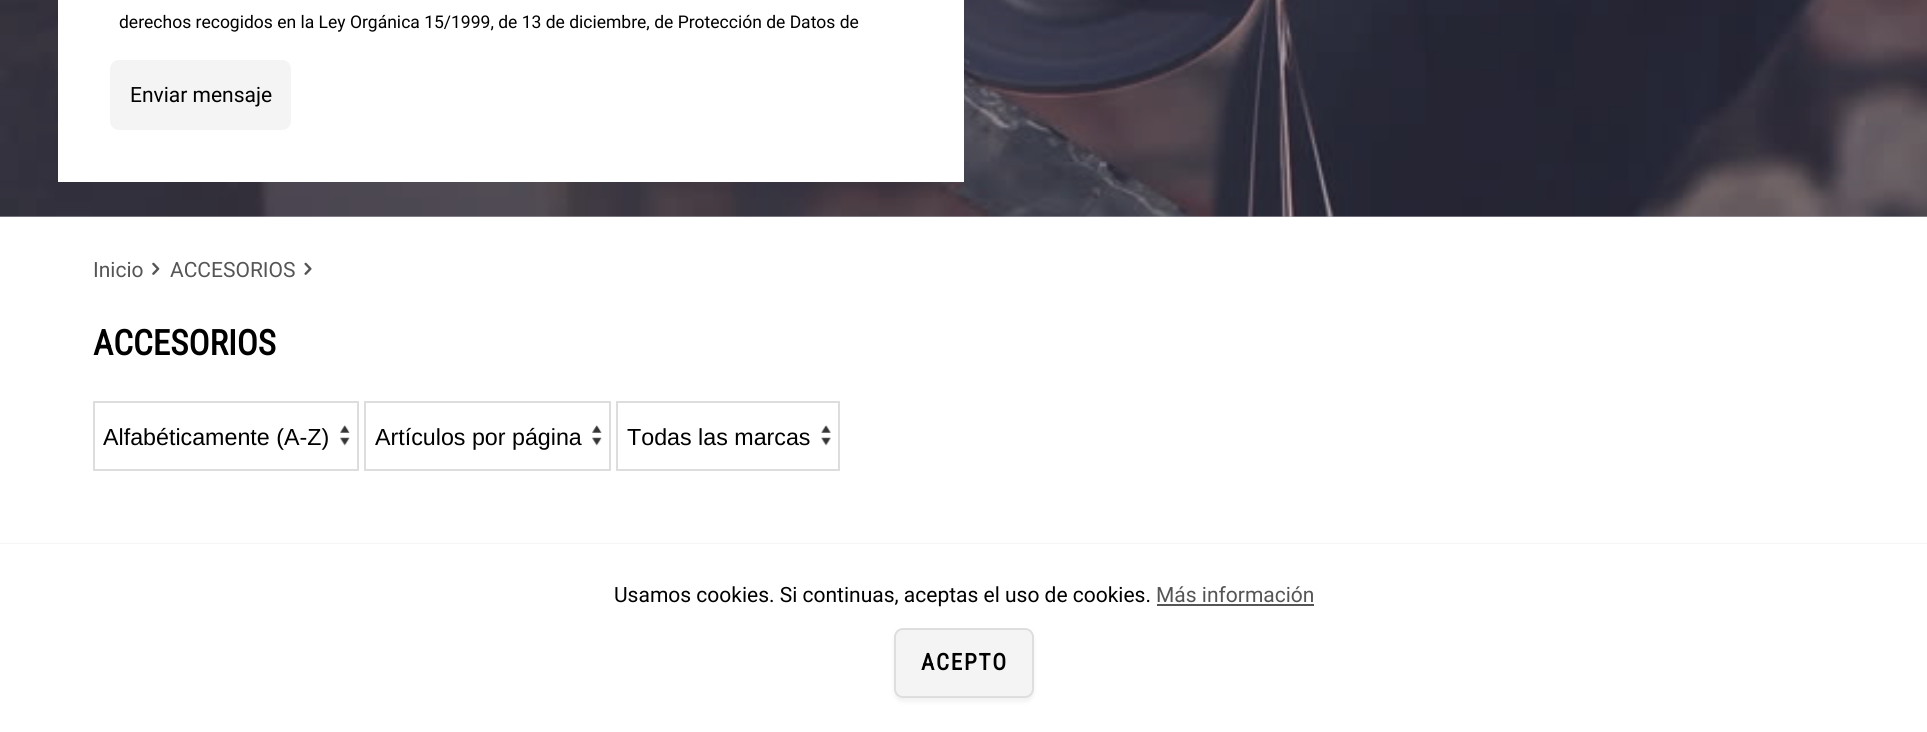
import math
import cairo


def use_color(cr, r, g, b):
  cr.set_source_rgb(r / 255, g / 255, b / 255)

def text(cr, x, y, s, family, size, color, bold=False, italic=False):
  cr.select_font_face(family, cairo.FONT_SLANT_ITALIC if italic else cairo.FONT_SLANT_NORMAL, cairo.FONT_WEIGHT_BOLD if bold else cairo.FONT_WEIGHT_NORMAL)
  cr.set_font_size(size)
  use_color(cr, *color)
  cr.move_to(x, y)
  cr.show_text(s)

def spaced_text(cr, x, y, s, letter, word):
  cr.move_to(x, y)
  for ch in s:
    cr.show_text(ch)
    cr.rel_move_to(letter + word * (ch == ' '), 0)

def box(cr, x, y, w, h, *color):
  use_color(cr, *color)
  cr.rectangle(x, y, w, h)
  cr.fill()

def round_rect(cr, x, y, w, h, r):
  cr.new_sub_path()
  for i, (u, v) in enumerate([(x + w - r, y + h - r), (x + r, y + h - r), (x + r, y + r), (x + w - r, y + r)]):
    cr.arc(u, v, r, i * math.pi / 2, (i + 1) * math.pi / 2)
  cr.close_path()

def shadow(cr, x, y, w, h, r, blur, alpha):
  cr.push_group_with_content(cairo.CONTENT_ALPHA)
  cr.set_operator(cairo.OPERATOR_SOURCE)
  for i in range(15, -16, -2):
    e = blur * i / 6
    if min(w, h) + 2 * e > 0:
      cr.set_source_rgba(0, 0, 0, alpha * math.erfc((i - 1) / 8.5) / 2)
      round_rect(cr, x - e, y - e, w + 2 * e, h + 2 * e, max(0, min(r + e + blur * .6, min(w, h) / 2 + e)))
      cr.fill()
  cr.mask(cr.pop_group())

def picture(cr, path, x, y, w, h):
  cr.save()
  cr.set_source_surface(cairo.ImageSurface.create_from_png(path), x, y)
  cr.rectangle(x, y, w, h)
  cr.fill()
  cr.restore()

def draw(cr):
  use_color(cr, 255, 255, 255)
  cr.paint()
  box(cr, 0, 216, 1927, 1, 180, 176, 187)
  picture(cr, "img_01.png", 0, 0, 1927, 217)
  box(cr, 58, 0, 906, 182, 255, 255, 255)
  use_color(cr, 244, 244, 244)
  round_rect(cr, 111, 61, 179, 68, 8)
  cr.fill_preserve()
  cr.stroke()
  picture(cr, "img_02.png", 152, 262, 8, 13)
  picture(cr, "img_03.png", 304, 262, 8, 13)
  picture(cr, "img_04.png", 340, 425, 10, 21)
  cr.rectangle(94, 402, 264, 68)
  use_color(cr, 221, 221, 221)
  cr.stroke()
  picture(cr, "img_04.png", 592, 425, 10, 21)
  cr.rectangle(365, 402, 245, 68)
  cr.stroke()
  picture(cr, "img_05.png", 821, 425, 10, 21)
  cr.rectangle(617, 402, 222, 68)
  cr.stroke()
  use_color(cr, 0, 0, 0)
  shadow(cr, -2, 543, 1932, 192, 0, 1, 0.05)
  box(cr, 0, 544, 1927, 188, 255, 255, 255)
  box(cr, 1157, 604, 157, 2, 85, 85, 85)
  use_color(cr, 0, 0, 0)
  shadow(cr, 894, 632, 140, 70, 9, 2, 0.05)
  use_color(cr, 244, 244, 244)
  round_rect(cr, 895, 629, 138, 68, 8)
  cr.fill_preserve()
  use_color(cr, 222, 222, 222)
  cr.stroke()
  text(cr, 119, 28, "derechos recogidos en la Ley Orgánica 15/1999, de 13 de diciembre, de Protección de Datos de", "Roboto", 17.5, (0, 0, 0))
  text(cr, 130, 102, "Enviar mensaje", "Roboto", 21, (0, 0, 0))
  text(cr, 93, 277, "Inicio", "Roboto", 21, (85, 85, 85))
  text(cr, 170, 277, "ACCESORIOS", "Roboto", 21, (85, 85, 85))
  text(cr, 93, 355, "ACCESORIOS", "Roboto Condensed", 35, (0, 0, 0), bold=True)
  text(cr, 103, 445, "Alfabéticamente (A-Z)", "Liberation Sans", 23.25, (0, 0, 0))
  text(cr, 375, 445, "Artículos por página", "Liberation Sans", 23.25, (0, 0, 0))
  text(cr, 627, 445, "Todas las marcas", "Liberation Sans", 23.25, (0, 0, 0))
  text(cr, 614, 602, "Usamos cookies. Si continuas, aceptas el uso de cookies.", "Roboto", 21, (0, 0, 0))
  text(cr, 1156, 602, "Más información", "Roboto", 21, (85, 85, 85))
  cr.select_font_face("Roboto Condensed", cairo.FONT_SLANT_NORMAL, cairo.FONT_WEIGHT_BOLD)
  cr.set_font_size(23)
  use_color(cr, 0, 0, 0)
  spaced_text(cr, 921, 670, "ACEPTO", 1.75, 0)


surface = cairo.ImageSurface(cairo.FORMAT_RGB24, 1927, 732)
cr = cairo.Context(surface)
options = cairo.FontOptions()
options.set_hint_metrics(cairo.HINT_METRICS_OFF)
options.set_hint_style(cairo.HINT_STYLE_NONE)
cr.set_font_options(options)
cr.set_miter_limit(4)
draw(cr)
surface.write_to_png("out.png")
